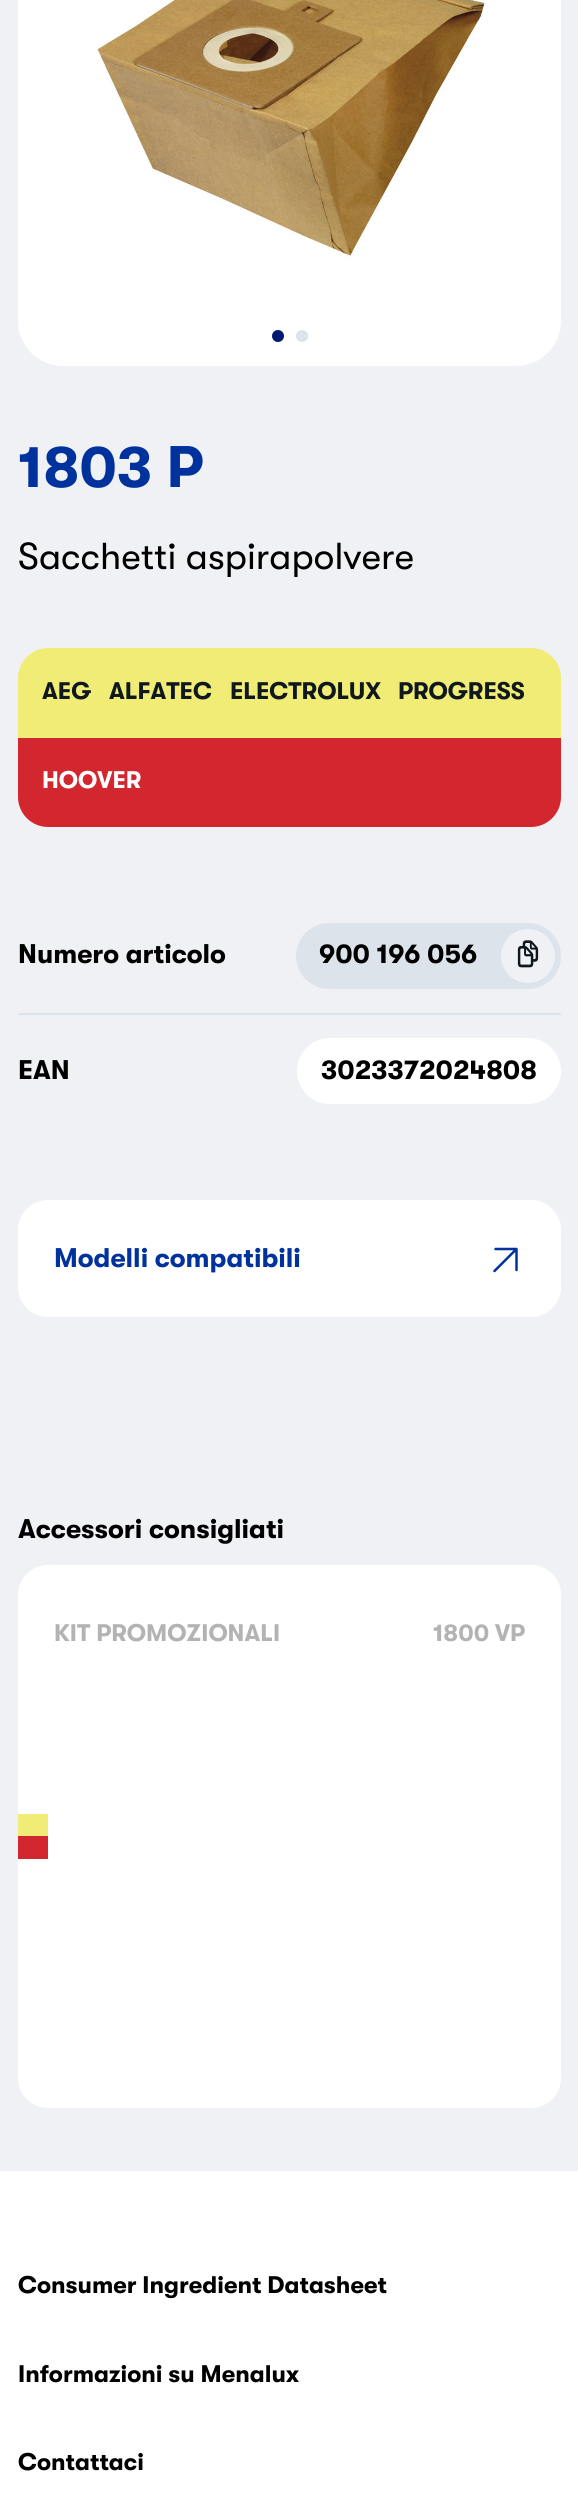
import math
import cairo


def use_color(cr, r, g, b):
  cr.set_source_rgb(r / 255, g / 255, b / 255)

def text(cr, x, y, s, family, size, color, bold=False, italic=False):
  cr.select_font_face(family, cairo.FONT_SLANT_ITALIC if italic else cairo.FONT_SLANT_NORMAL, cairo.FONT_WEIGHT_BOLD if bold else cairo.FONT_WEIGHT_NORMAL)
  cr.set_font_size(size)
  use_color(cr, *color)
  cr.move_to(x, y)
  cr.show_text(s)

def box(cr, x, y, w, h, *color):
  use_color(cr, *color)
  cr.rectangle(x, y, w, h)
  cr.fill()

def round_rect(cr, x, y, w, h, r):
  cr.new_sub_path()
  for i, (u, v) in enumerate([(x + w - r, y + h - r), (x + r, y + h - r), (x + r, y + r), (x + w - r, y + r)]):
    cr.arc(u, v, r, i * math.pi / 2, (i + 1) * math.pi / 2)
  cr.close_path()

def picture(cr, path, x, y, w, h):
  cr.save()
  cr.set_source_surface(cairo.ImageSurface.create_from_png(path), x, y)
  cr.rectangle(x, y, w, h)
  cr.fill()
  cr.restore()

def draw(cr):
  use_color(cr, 240, 241, 245)
  cr.paint()
  use_color(cr, 255, 255, 255)
  round_rect(cr, 18, -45, 543, 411, 45)
  cr.fill()
  picture(cr, "img_01.png", 95, 0, 392, 258)
  use_color(cr, 0, 26, 112)
  cr.arc(278, 336, 6, 0, 2 * math.pi)
  cr.fill()
  use_color(cr, 220, 227, 234)
  cr.arc(302, 336, 6, 0, 2 * math.pi)
  cr.fill()
  use_color(cr, 240, 236, 117)
  cr.new_path()
  cr.move_to(48, 648)
  cr.line_to(531, 648)
  cr.curve_to(547.5, 648, 561, 661.5, 561, 678)
  cr.line_to(561, 738)
  cr.line_to(18, 738)
  cr.line_to(18, 678)
  cr.curve_to(18, 661.5, 31.5, 648, 48, 648)
  cr.close_path()
  cr.fill()
  use_color(cr, 211, 39, 47)
  cr.new_path()
  cr.move_to(18, 738)
  cr.line_to(561, 738)
  cr.line_to(561, 797)
  cr.curve_to(561, 813.5, 547.5, 827, 531, 827)
  cr.line_to(48, 827)
  cr.curve_to(31.5, 827, 18, 813.5, 18, 797)
  cr.close_path()
  cr.fill()
  box(cr, 18, 1013, 543, 2, 220, 227, 234)
  round_rect(cr, 296, 923, 265, 66, 33)
  cr.fill()
  use_color(cr, 240, 241, 245)
  cr.arc(528, 956, 27, 0, 2 * math.pi)
  cr.fill()
  picture(cr, "img_02.png", 517, 940, 22, 28)
  use_color(cr, 255, 255, 255)
  round_rect(cr, 297, 1038, 264, 66, 33)
  cr.fill()
  round_rect(cr, 18, 1200, 543, 117, 30)
  cr.fill()
  cr.new_path()
  cr.move_to(494.5, 1271)
  cr.line_to(516.5, 1249)
  cr.move_to(516.5, 1249)
  cr.line_to(516.5, 1270)
  cr.move_to(516.5, 1249)
  cr.line_to(495.5, 1249)
  use_color(cr, 0, 50, 158)
  cr.set_line_width(2.5)
  cr.set_line_cap(cairo.LINE_CAP_ROUND)
  cr.set_line_join(cairo.LINE_JOIN_ROUND)
  cr.stroke()
  use_color(cr, 255, 255, 255)
  round_rect(cr, 18, 1565, 543, 543, 30)
  cr.fill()
  box(cr, 18, 1814, 30, 22, 240, 236, 117)
  box(cr, 18, 1836, 30, 23, 211, 39, 47)
  box(cr, 0, 2171, 578, 332, 255, 255, 255)
  text(cr, 18, 487, "1803 P", "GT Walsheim", 58.5, (0, 50, 158), bold=True)
  text(cr, 18, 569, "Sacchetti aspirapolvere", "GT Walsheim", 37.5, (0, 0, 0))
  text(cr, 42, 699, "AEG", "GT Walsheim", 24, (15, 23, 31), bold=True)
  text(cr, 109, 699, "ALFATEC", "GT Walsheim", 24, (15, 23, 31), bold=True)
  text(cr, 230, 699, "ELECTROLUX", "GT Walsheim", 24, (15, 23, 31), bold=True)
  text(cr, 398, 699, "PROGRESS", "GT Walsheim", 24, (15, 23, 31), bold=True)
  text(cr, 42, 788, "HOOVER", "GT Walsheim", 24, (255, 255, 255), bold=True)
  text(cr, 18, 963, "Numero articolo", "GT Walsheim", 27, (0, 0, 0), bold=True)
  text(cr, 319, 963, "900 196 056", "GT Walsheim", 27, (0, 0, 0), bold=True)
  text(cr, 18, 1079, "EAN", "GT Walsheim", 27, (0, 0, 0), bold=True)
  text(cr, 321, 1079, "3023372024808", "GT Walsheim", 27, (0, 0, 0), bold=True)
  text(cr, 54, 1267, "Modelli compatibili", "GT Walsheim", 27, (0, 50, 158), bold=True)
  text(cr, 18, 1538, "Accessori consigliati", "GT Walsheim", 27, (0, 0, 0), bold=True)
  text(cr, 54, 1641, "KIT PROMOZIONALI", "GT Walsheim", 24, (179, 179, 179), bold=True)
  text(cr, 433, 1641, "1800 VP", "GT Walsheim", 24, (179, 179, 179), bold=True)
  text(cr, 18, 2293, "Consumer Ingredient Datasheet", "GT Walsheim", 24, (0, 0, 0), bold=True)
  text(cr, 18, 2382, "Informazioni su Menalux", "GT Walsheim", 24, (0, 0, 0), bold=True)
  text(cr, 18, 2470, "Contattaci", "GT Walsheim", 24, (0, 0, 0), bold=True)


surface = cairo.ImageSurface(cairo.FORMAT_RGB24, 578, 2503)
cr = cairo.Context(surface)
options = cairo.FontOptions()
options.set_hint_metrics(cairo.HINT_METRICS_OFF)
options.set_hint_style(cairo.HINT_STYLE_NONE)
cr.set_font_options(options)
cr.set_miter_limit(4)
draw(cr)
surface.write_to_png("out.png")
